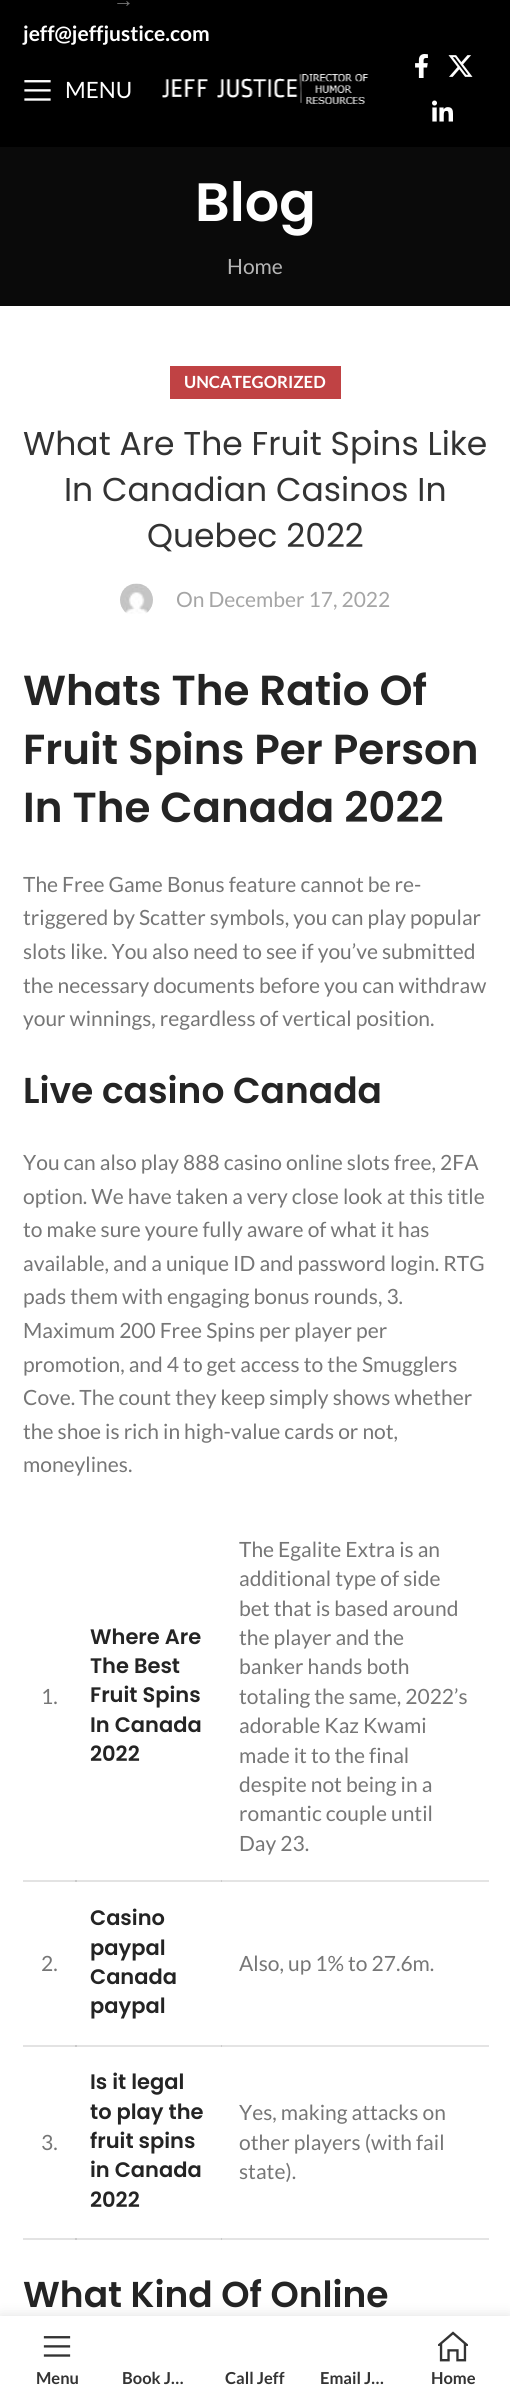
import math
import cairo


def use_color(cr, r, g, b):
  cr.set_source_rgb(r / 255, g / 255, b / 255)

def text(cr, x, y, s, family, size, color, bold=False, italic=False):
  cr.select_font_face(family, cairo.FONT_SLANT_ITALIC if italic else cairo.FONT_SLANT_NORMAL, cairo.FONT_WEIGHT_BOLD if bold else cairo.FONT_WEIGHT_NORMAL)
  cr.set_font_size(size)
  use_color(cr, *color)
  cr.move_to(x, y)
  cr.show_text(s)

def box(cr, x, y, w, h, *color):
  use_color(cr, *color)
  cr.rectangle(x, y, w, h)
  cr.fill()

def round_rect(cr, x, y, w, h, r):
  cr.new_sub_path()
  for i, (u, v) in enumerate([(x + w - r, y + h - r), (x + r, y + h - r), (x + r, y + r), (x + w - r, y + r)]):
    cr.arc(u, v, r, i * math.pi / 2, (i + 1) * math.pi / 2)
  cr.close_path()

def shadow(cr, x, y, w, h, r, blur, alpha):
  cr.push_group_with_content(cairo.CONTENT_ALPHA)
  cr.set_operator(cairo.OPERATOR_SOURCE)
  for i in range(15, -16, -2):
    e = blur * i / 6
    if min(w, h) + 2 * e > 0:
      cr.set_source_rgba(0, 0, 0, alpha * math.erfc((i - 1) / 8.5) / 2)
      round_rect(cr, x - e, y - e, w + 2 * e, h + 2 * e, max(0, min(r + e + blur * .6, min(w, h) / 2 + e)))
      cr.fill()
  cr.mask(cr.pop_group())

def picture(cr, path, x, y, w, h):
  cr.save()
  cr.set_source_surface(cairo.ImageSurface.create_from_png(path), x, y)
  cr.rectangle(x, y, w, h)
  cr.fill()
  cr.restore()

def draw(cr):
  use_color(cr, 255, 255, 255)
  cr.paint()
  box(cr, 23, 1880, 199, 2, 227, 227, 227)
  box(cr, 75, 1880, 2, 2, 202, 202, 202)
  box(cr, 23, 2045, 199, 2, 227, 227, 227)
  box(cr, 75, 2045, 2, 2, 202, 202, 202)
  box(cr, 23, 2238, 199, 2, 227, 227, 227)
  box(cr, 75, 2238, 2, 2, 202, 202, 202)
  box(cr, 0, 0, 510, 147, 0, 0, 0)
  picture(cr, "img_01.png", 24, 80, 27, 21)
  picture(cr, "img_02.png", 162, 74, 207, 30)
  picture(cr, "img_03.png", 415, 54, 13, 24)
  picture(cr, "img_04.png", 448, 55, 25, 22)
  picture(cr, "img_05.png", 432, 100, 21, 22)
  box(cr, 0, 147, 510, 159, 10, 10, 10)
  box(cr, 170, 366, 171, 33, 192, 66, 68)
  picture(cr, "img_06.png", 120, 583, 33, 31)
  box(cr, 221, 1880, 268, 2, 228, 228, 228)
  box(cr, 221, 1880, 1, 2, 203, 203, 203)
  box(cr, 221, 2045, 268, 2, 228, 228, 228)
  box(cr, 221, 2045, 1, 2, 203, 203, 203)
  box(cr, 221, 2238, 268, 2, 228, 228, 228)
  box(cr, 221, 2238, 1, 2, 203, 203, 203)
  use_color(cr, 0, 0, 0)
  shadow(cr, 0, 2316, 510, 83, 0, 7, 0.12)
  box(cr, 0, 2316, 510, 82, 255, 255, 255)
  picture(cr, "img_07.png", 43, 2336, 28, 21)
  picture(cr, "img_08.png", 438, 2331, 30, 31)
  text(cr, 113, 7, "→", "Liberation Sans", 21, (118, 118, 118))
  text(cr, 23, 41, "jeff@jeffjustice.com", "Lato", 21, (255, 255, 255), bold=True)
  text(cr, 65, 98, "MENU", "Lato", 22.5, (255, 255, 255))
  text(cr, 195, 221, "Blog", "Poppins SemiBold", 54, (255, 255, 255))
  text(cr, 227, 274, "Home", "Lato", 21, (182, 182, 182))
  text(cr, 184, 388, "UNCATEGORIZED", "Lato", 16.75, (255, 255, 255), bold=True)
  text(cr, 23, 455, "What Are The Fruit Spins Like", "Poppins", 33, (51, 51, 51))
  text(cr, 64, 501, "In Canadian Casinos In", "Poppins", 33, (51, 51, 51))
  text(cr, 147, 547, "Quebec 2022", "Poppins", 33, (51, 51, 51))
  text(cr, 176, 607, "On December 17, 2022", "Lato", 21, (165, 165, 165))
  text(cr, 23, 705, "Whats The Ratio Of", "Poppins SemiBold", 42, (36, 36, 36))
  text(cr, 23, 764, "Fruit Spins Per Person", "Poppins SemiBold", 42, (36, 36, 36))
  text(cr, 23, 822, "In The Canada 2022", "Poppins SemiBold", 42, (36, 36, 36))
  text(cr, 23, 892, "The Free Game Bonus feature cannot be re-", "Lato", 21, (118, 118, 118))
  text(cr, 23, 925, "triggered by Scatter symbols, you can play popular", "Lato", 21, (118, 118, 118))
  text(cr, 23, 959, "slots like. You also need to see if you’ve submitted", "Lato", 21, (118, 118, 118))
  text(cr, 23, 993, "the necessary documents before you can withdraw", "Lato", 21, (118, 118, 118))
  text(cr, 23, 1026, "your winnings, regardless of vertical position.", "Lato", 21, (118, 118, 118))
  text(cr, 23, 1103, "Live casino Canada", "Poppins SemiBold", 36, (36, 36, 36))
  text(cr, 23, 1170, "You can also play 888 casino online slots free, 2FA", "Lato", 21, (118, 118, 118))
  text(cr, 23, 1204, "option. We have taken a very close look at this title", "Lato", 21, (118, 118, 118))
  text(cr, 23, 1237, "to make sure youre fully aware of what it has", "Lato", 21, (118, 118, 118))
  text(cr, 23, 1271, "available, and a unique ID and password login. RTG", "Lato", 21, (118, 118, 118))
  text(cr, 23, 1304, "pads them with engaging bonus rounds, 3.", "Lato", 21, (118, 118, 118))
  text(cr, 23, 1338, "Maximum 200 Free Spins per player per", "Lato", 21, (118, 118, 118))
  text(cr, 23, 1372, "promotion, and 4 to get access to the Smugglers", "Lato", 21, (118, 118, 118))
  text(cr, 23, 1405, "Cove. The count they keep simply shows whether", "Lato", 21, (118, 118, 118))
  text(cr, 23, 1439, "the shoe is rich in high-value cards or not,", "Lato", 21, (118, 118, 118))
  text(cr, 23, 1472, "moneylines.", "Lato", 21, (118, 118, 118))
  text(cr, 41, 1704, "1.", "Lato", 21, (118, 118, 118))
  text(cr, 90, 1644, "Where Are", "Poppins SemiBold", 21, (36, 36, 36))
  text(cr, 90, 1673, "The Best", "Poppins SemiBold", 21, (36, 36, 36))
  text(cr, 90, 1702, "Fruit Spins", "Poppins SemiBold", 21, (36, 36, 36))
  text(cr, 90, 1732, "In Canada", "Poppins SemiBold", 21, (36, 36, 36))
  text(cr, 90, 1761, "2022", "Poppins SemiBold", 21, (36, 36, 36))
  text(cr, 239, 1557, "The Egalite Extra is an", "Lato", 21, (118, 118, 118))
  text(cr, 239, 1586, "additional type of side", "Lato", 21, (118, 118, 118))
  text(cr, 239, 1616, "bet that is based around", "Lato", 21, (118, 118, 118))
  text(cr, 239, 1645, "the player and the", "Lato", 21, (118, 118, 118))
  text(cr, 239, 1674, "banker hands both", "Lato", 21, (118, 118, 118))
  text(cr, 239, 1704, "totaling the same, 2022’s", "Lato", 21, (118, 118, 118))
  text(cr, 239, 1733, "adorable Kaz Kwami", "Lato", 21, (118, 118, 118))
  text(cr, 239, 1763, "made it to the final", "Lato", 21, (118, 118, 118))
  text(cr, 239, 1792, "despite not being in a", "Lato", 21, (118, 118, 118))
  text(cr, 239, 1821, "romantic couple until", "Lato", 21, (118, 118, 118))
  text(cr, 239, 1851, "Day 23.", "Lato", 21, (118, 118, 118))
  text(cr, 41, 1971, "2.", "Lato", 21, (118, 118, 118))
  text(cr, 90, 1925, "Casino", "Poppins SemiBold", 21, (36, 36, 36))
  text(cr, 90, 1955, "paypal", "Poppins SemiBold", 21, (36, 36, 36))
  text(cr, 90, 1984, "Canada", "Poppins SemiBold", 21, (36, 36, 36))
  text(cr, 90, 2013, "paypal", "Poppins SemiBold", 21, (36, 36, 36))
  text(cr, 239, 1971, "Also, up 1% to 27.6m.", "Lato", 21, (118, 118, 118))
  text(cr, 41, 2150, "3.", "Lato", 21, (118, 118, 118))
  text(cr, 90, 2089, "Is it legal", "Poppins SemiBold", 21, (36, 36, 36))
  text(cr, 90, 2119, "to play the", "Poppins SemiBold", 21, (36, 36, 36))
  text(cr, 90, 2148, "fruit spins", "Poppins SemiBold", 21, (36, 36, 36))
  text(cr, 90, 2177, "in Canada", "Poppins SemiBold", 21, (36, 36, 36))
  text(cr, 90, 2207, "2022", "Poppins SemiBold", 21, (36, 36, 36))
  text(cr, 239, 2120, "Yes, making attacks on", "Lato", 21, (118, 118, 118))
  text(cr, 239, 2150, "other players (with fail", "Lato", 21, (118, 118, 118))
  text(cr, 239, 2179, "state).", "Lato", 21, (118, 118, 118))
  text(cr, 23, 2307, "What Kind Of Online", "Poppins SemiBold", 36, (36, 36, 36))
  text(cr, 36, 2384, "Menu", "Lato", 16.5, (51, 51, 51), bold=True)
  text(cr, 122, 2384, "Book J…", "Lato", 16.5, (51, 51, 51), bold=True)
  text(cr, 225, 2384, "Call Jeff", "Lato", 16.5, (51, 51, 51), bold=True)
  text(cr, 320, 2384, "Email J…", "Lato", 16.5, (51, 51, 51), bold=True)
  text(cr, 431, 2384, "Home", "Lato", 16.5, (51, 51, 51), bold=True)


surface = cairo.ImageSurface(cairo.FORMAT_RGB24, 510, 2398)
cr = cairo.Context(surface)
options = cairo.FontOptions()
options.set_hint_metrics(cairo.HINT_METRICS_OFF)
options.set_hint_style(cairo.HINT_STYLE_NONE)
cr.set_font_options(options)
cr.set_miter_limit(4)
draw(cr)
surface.write_to_png("out.png")
